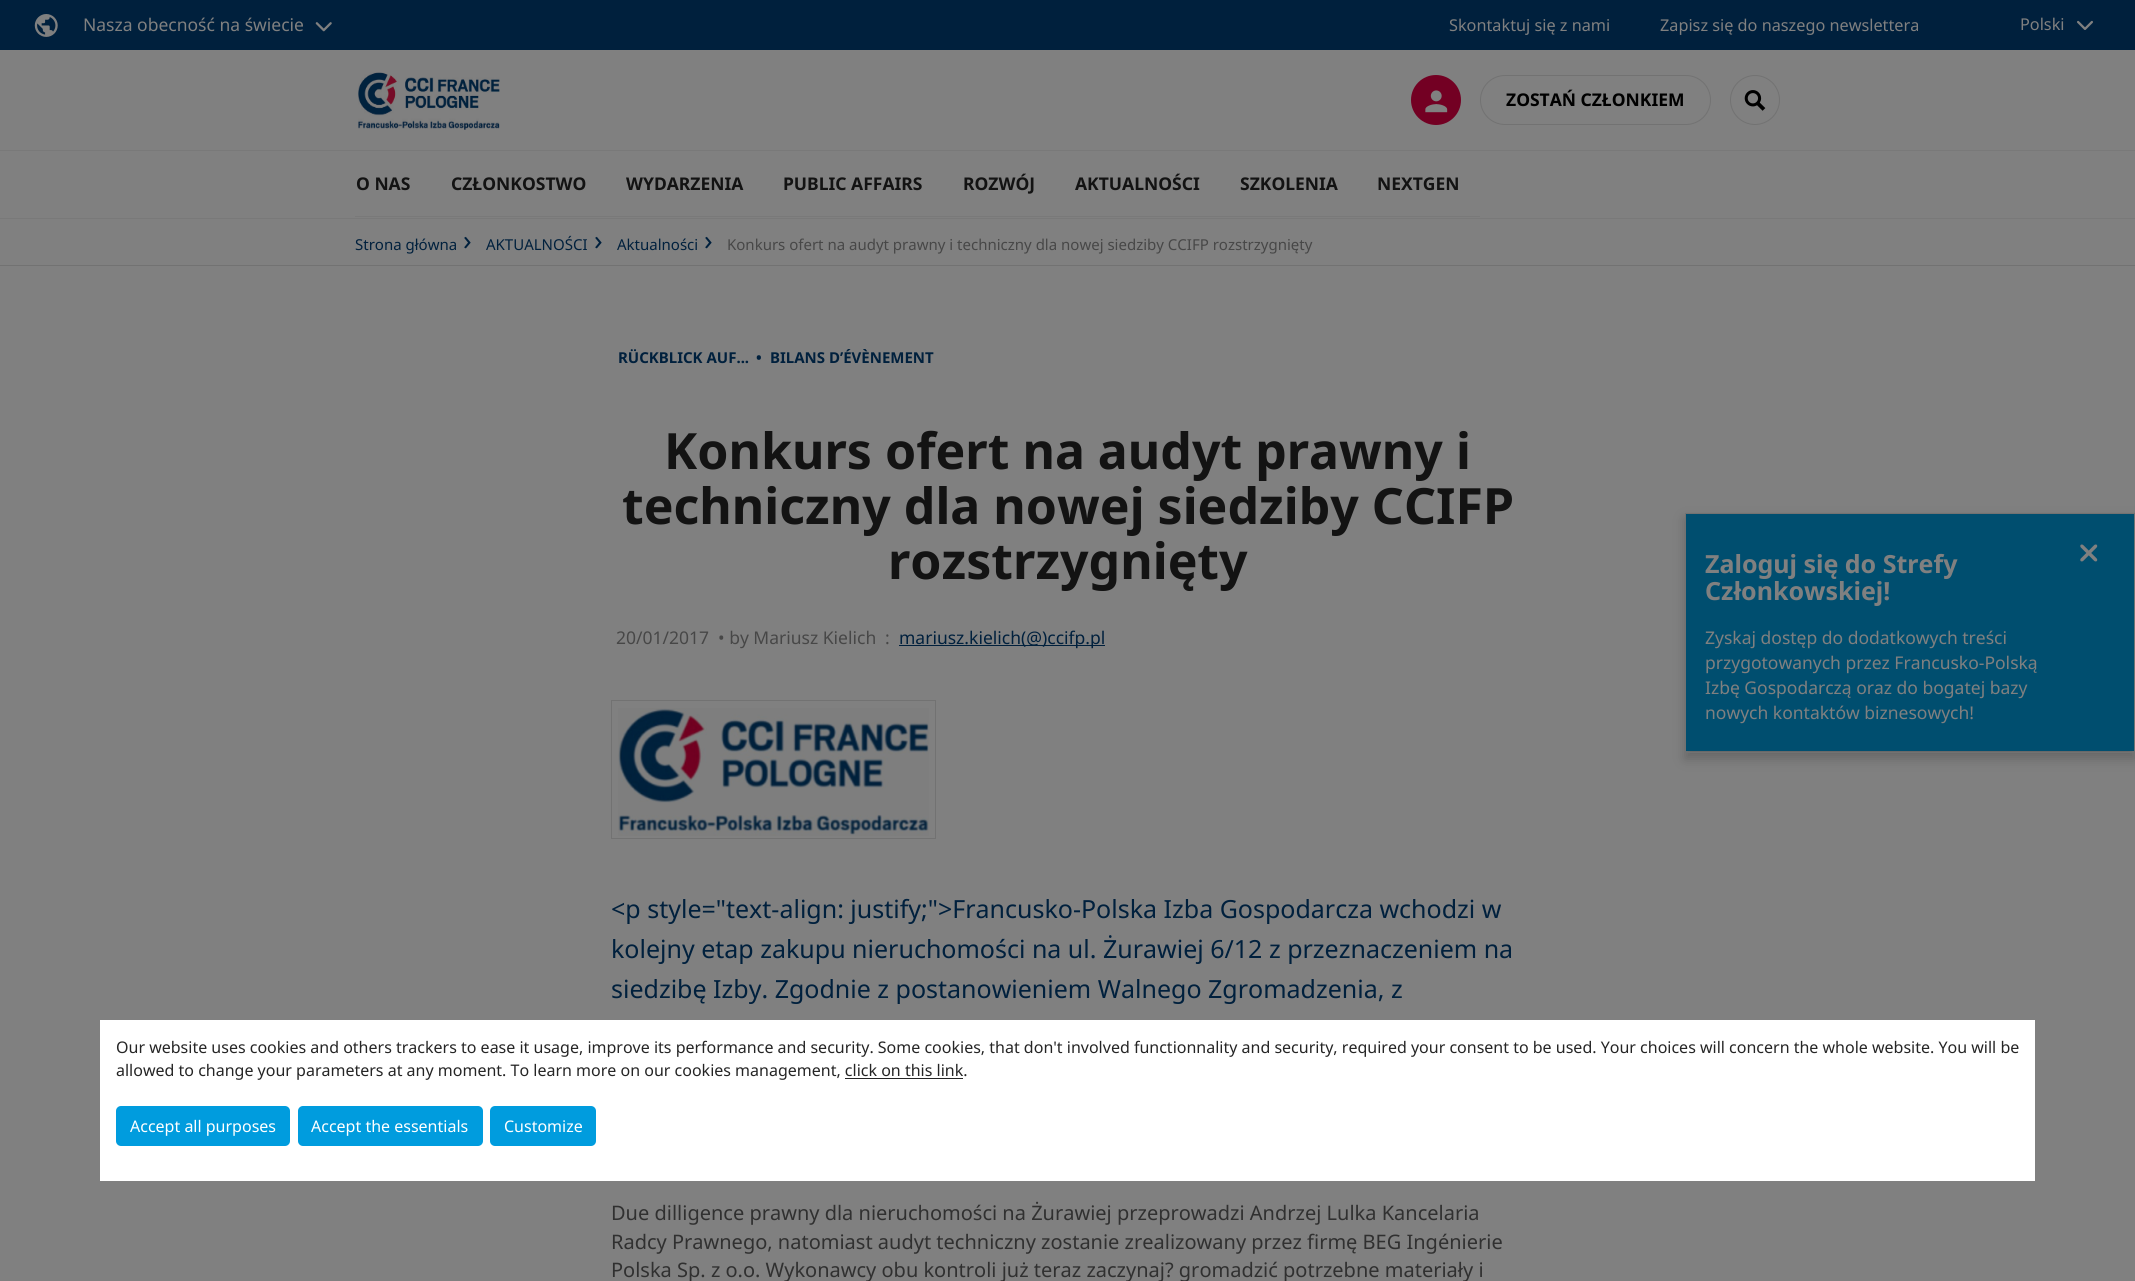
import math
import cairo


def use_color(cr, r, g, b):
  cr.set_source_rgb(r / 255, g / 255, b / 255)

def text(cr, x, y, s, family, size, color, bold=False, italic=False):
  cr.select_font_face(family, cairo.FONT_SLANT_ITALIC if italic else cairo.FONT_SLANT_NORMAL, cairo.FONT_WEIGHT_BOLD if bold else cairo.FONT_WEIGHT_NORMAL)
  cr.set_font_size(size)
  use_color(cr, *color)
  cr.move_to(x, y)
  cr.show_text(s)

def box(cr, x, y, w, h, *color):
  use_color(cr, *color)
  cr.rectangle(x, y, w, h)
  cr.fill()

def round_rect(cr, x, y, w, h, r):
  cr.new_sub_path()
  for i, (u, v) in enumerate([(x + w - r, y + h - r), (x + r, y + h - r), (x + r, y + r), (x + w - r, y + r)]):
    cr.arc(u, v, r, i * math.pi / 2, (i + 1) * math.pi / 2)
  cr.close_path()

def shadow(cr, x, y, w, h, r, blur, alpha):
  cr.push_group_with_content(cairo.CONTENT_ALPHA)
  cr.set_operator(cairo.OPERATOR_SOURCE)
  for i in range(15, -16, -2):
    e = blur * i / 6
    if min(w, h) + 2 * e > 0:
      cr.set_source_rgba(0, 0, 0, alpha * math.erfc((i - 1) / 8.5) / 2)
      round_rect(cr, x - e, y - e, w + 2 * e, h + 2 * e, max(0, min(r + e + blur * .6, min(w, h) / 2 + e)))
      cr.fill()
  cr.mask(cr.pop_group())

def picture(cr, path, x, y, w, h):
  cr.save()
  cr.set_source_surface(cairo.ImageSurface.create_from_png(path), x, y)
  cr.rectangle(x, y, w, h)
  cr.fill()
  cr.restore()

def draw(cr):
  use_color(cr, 128, 128, 128)
  cr.paint()
  box(cr, 0, 218, 2135, 1, 121, 121, 121)
  box(cr, 0, 0, 2135, 50, 0, 32, 61)
  picture(cr, "img_01.png", 34, 14, 24, 23)
  picture(cr, "img_02.png", 315, 22, 17, 10)
  picture(cr, "img_03.png", 2077, 20, 16, 10)
  box(cr, 0, 150, 2135, 1, 121, 121, 121)
  picture(cr, "img_04.png", 358, 72, 142, 58)
  use_color(cr, 115, 0, 35)
  cr.arc(1436, 100, 25, 0, 2 * math.pi)
  cr.fill()
  picture(cr, "img_05.png", 1425, 90, 23, 23)
  round_rect(cr, 1480.5, 75.5, 230, 49, 24.5)
  use_color(cr, 114, 114, 114)
  cr.set_line_width(1)
  cr.stroke()
  cr.arc(1755, 100, 24.5, 0, 2 * math.pi)
  cr.stroke()
  picture(cr, "img_06.png", 1744, 90, 22, 21)
  box(cr, 355, 216, 1125, 1, 121, 121, 121)
  box(cr, 0, 265, 2135, 1, 114, 114, 114)
  box(cr, 899, 645, 206, 1, 0, 32, 61)
  cr.rectangle(611.5, 700.5, 324, 138)
  use_color(cr, 114, 114, 114)
  cr.stroke()
  picture(cr, "img_07.png", 618, 708, 311, 128)
  use_color(cr, 0, 0, 0)
  shadow(cr, 1685, 519, 450, 240, 0, 6, 0.2)
  box(cr, 1686, 514, 448, 237, 0, 78, 111)
  cr.rectangle(1685.5, 513.5, 449, 239)
  use_color(cr, 114, 114, 114)
  cr.stroke()
  picture(cr, "img_08.png", 2080, 544, 18, 18)
  box(cr, 100, 1020, 1935, 161, 255, 255, 255)
  box(cr, 845, 1078, 118, 1, 37, 37, 37)
  use_color(cr, 0, 156, 222)
  round_rect(cr, 116, 1106, 174, 40, 5)
  cr.fill()
  round_rect(cr, 298, 1106, 185, 40, 5)
  cr.fill()
  round_rect(cr, 490, 1106, 106, 40, 5)
  cr.fill()
  text(cr, 83, 31, "Nasza obecność na świecie", "Noto Sans", 17.5, (128, 128, 128))
  text(cr, 1449, 31, "Skontaktuj się z nami", "Noto Sans", 16.25, (128, 128, 128))
  text(cr, 1660, 31, "Zapisz się do naszego newslettera", "Noto Sans", 16.25, (128, 128, 128))
  text(cr, 2020, 30, "Polski", "Noto Sans", 16.25, (128, 128, 128))
  text(cr, 1506, 106, "ZOSTAŃ CZŁONKIEM", "Noto Sans", 17.5, (0, 0, 0), bold=True)
  text(cr, 356, 190, "O NAS", "Noto Sans", 17.5, (19, 19, 19), bold=True)
  text(cr, 451, 190, "CZŁONKOSTWO", "Noto Sans", 17.5, (19, 19, 19), bold=True)
  text(cr, 626, 190, "WYDARZENIA", "Noto Sans", 17.5, (19, 19, 19), bold=True)
  text(cr, 783, 190, "PUBLIC AFFAIRS", "Noto Sans", 17.5, (19, 19, 19), bold=True)
  text(cr, 963, 190, "ROZWÓJ", "Noto Sans", 17.5, (19, 19, 19), bold=True)
  text(cr, 1075, 190, "AKTUALNOŚCI", "Noto Sans", 17.5, (19, 19, 19), bold=True)
  text(cr, 1240, 190, "SZKOLENIA", "Noto Sans", 17.5, (19, 19, 19), bold=True)
  text(cr, 1377, 190, "NEXTGEN", "Noto Sans", 17.5, (19, 19, 19), bold=True)
  text(cr, 355, 250, "Strona główna", "Noto Sans", 15, (0, 32, 61))
  text(cr, 463, 250, "›", "Noto Sans", 28, (0, 32, 61))
  text(cr, 486, 250, "AKTUALNOŚCI", "Noto Sans", 15, (0, 32, 61))
  text(cr, 594, 250, "›", "Noto Sans", 28, (0, 32, 61))
  text(cr, 617, 250, "Aktualności", "Noto Sans", 15, (0, 32, 61))
  text(cr, 704, 250, "›", "Noto Sans", 28, (0, 32, 61))
  text(cr, 727, 250, "Konkurs ofert na audyt prawny i techniczny dla nowej siedziby CCIFP rozstrzygnięty", "Noto Sans", 15, (71, 71, 71))
  text(cr, 618, 363, "RÜCKBLICK AUF...", "Noto Sans", 15, (0, 32, 61), bold=True)
  text(cr, 756, 363, "•", "Noto Sans", 15, (0, 32, 61), bold=True)
  text(cr, 770, 363, "BILANS D’ÉVÈNEMENT", "Noto Sans", 15, (0, 32, 61), bold=True)
  text(cr, 664, 469, "Konkurs ofert na audyt prawny i", "Noto Sans", 50, (19, 19, 19), bold=True)
  text(cr, 622, 524, "techniczny dla nowej siedziby CCIFP", "Noto Sans", 50, (19, 19, 19), bold=True)
  text(cr, 888, 579, "rozstrzygnięty", "Noto Sans", 50, (19, 19, 19), bold=True)
  text(cr, 616, 644, "20/01/2017", "Noto Sans", 17.5, (71, 71, 71))
  text(cr, 718, 644, "• by Mariusz Kielich", "Noto Sans", 17.5, (71, 71, 71))
  text(cr, 885, 644, ":", "Noto Sans", 17.5, (71, 71, 71))
  text(cr, 899, 644, "mariusz.kielich(@)ccifp.pl", "Noto Sans", 17.5, (0, 32, 61))
  text(cr, 611, 918, "<p style=\"text-align: justify;\">Francusko-Polska Izba Gospodarcza wchodzi w", "Noto Sans", 25, (0, 32, 61))
  text(cr, 611, 958, "kolejny etap zakupu nieruchomości na ul. Żurawiej 6/12 z przeznaczeniem na", "Noto Sans", 25, (0, 32, 61))
  text(cr, 611, 998, "siedzibę Izby. Zgodnie z postanowieniem Walnego Zgromadzenia, z", "Noto Sans", 25, (0, 32, 61))
  text(cr, 611, 1220, "Due dilligence prawny dla nieruchomości na Żurawiej przeprowadzi Andrzej Lulka Kancelaria", "Noto Sans", 20, (48, 48, 48))
  text(cr, 611, 1249, "Radcy Prawnego, natomiast audyt techniczny zostanie zrealizowany przez firmę BEG Ingénierie", "Noto Sans", 20, (48, 48, 48))
  text(cr, 611, 1277, "Polska Sp. z o.o. Wykonawcy obu kontroli już teraz zaczynaj? gromadzić potrzebne materiały i", "Noto Sans", 20, (48, 48, 48))
  text(cr, 1705, 573, "Zaloguj się do Strefy", "Noto Sans", 25, (128, 128, 128), bold=True)
  text(cr, 1705, 600, "Członkowskiej!", "Noto Sans", 25, (128, 128, 128), bold=True)
  text(cr, 1705, 644, "Zyskaj dostęp do dodatkowych treści", "Noto Sans", 17.5, (128, 128, 128))
  text(cr, 1705, 669, "przygotowanych przez Francusko-Polską", "Noto Sans", 17.5, (128, 128, 128))
  text(cr, 1705, 694, "Izbę Gospodarczą oraz do bogatej bazy", "Noto Sans", 17.5, (128, 128, 128))
  text(cr, 1705, 719, "nowych kontaktów biznesowych!", "Noto Sans", 17.5, (128, 128, 128))
  text(cr, 116, 1053, "Our website uses cookies and others trackers to ease it usage, improve its performance and security. Some cookies, that don't involved functionnality and security, required your consent to be used. Your choices will concern the whole website. You will be", "Noto Sans", 16, (37, 37, 37))
  text(cr, 116, 1076, "allowed to change your parameters at any moment. To learn more on our cookies management, click on this link.", "Noto Sans", 16, (37, 37, 37))
  text(cr, 130, 1132, "Accept all purposes", "Noto Sans", 16, (255, 255, 255))
  text(cr, 311, 1132, "Accept the essentials", "Noto Sans", 16, (255, 255, 255))
  text(cr, 504, 1132, "Customize", "Noto Sans", 16, (255, 255, 255))


surface = cairo.ImageSurface(cairo.FORMAT_RGB24, 2135, 1281)
cr = cairo.Context(surface)
options = cairo.FontOptions()
options.set_hint_metrics(cairo.HINT_METRICS_OFF)
options.set_hint_style(cairo.HINT_STYLE_NONE)
cr.set_font_options(options)
cr.set_miter_limit(4)
draw(cr)
surface.write_to_png("out.png")
